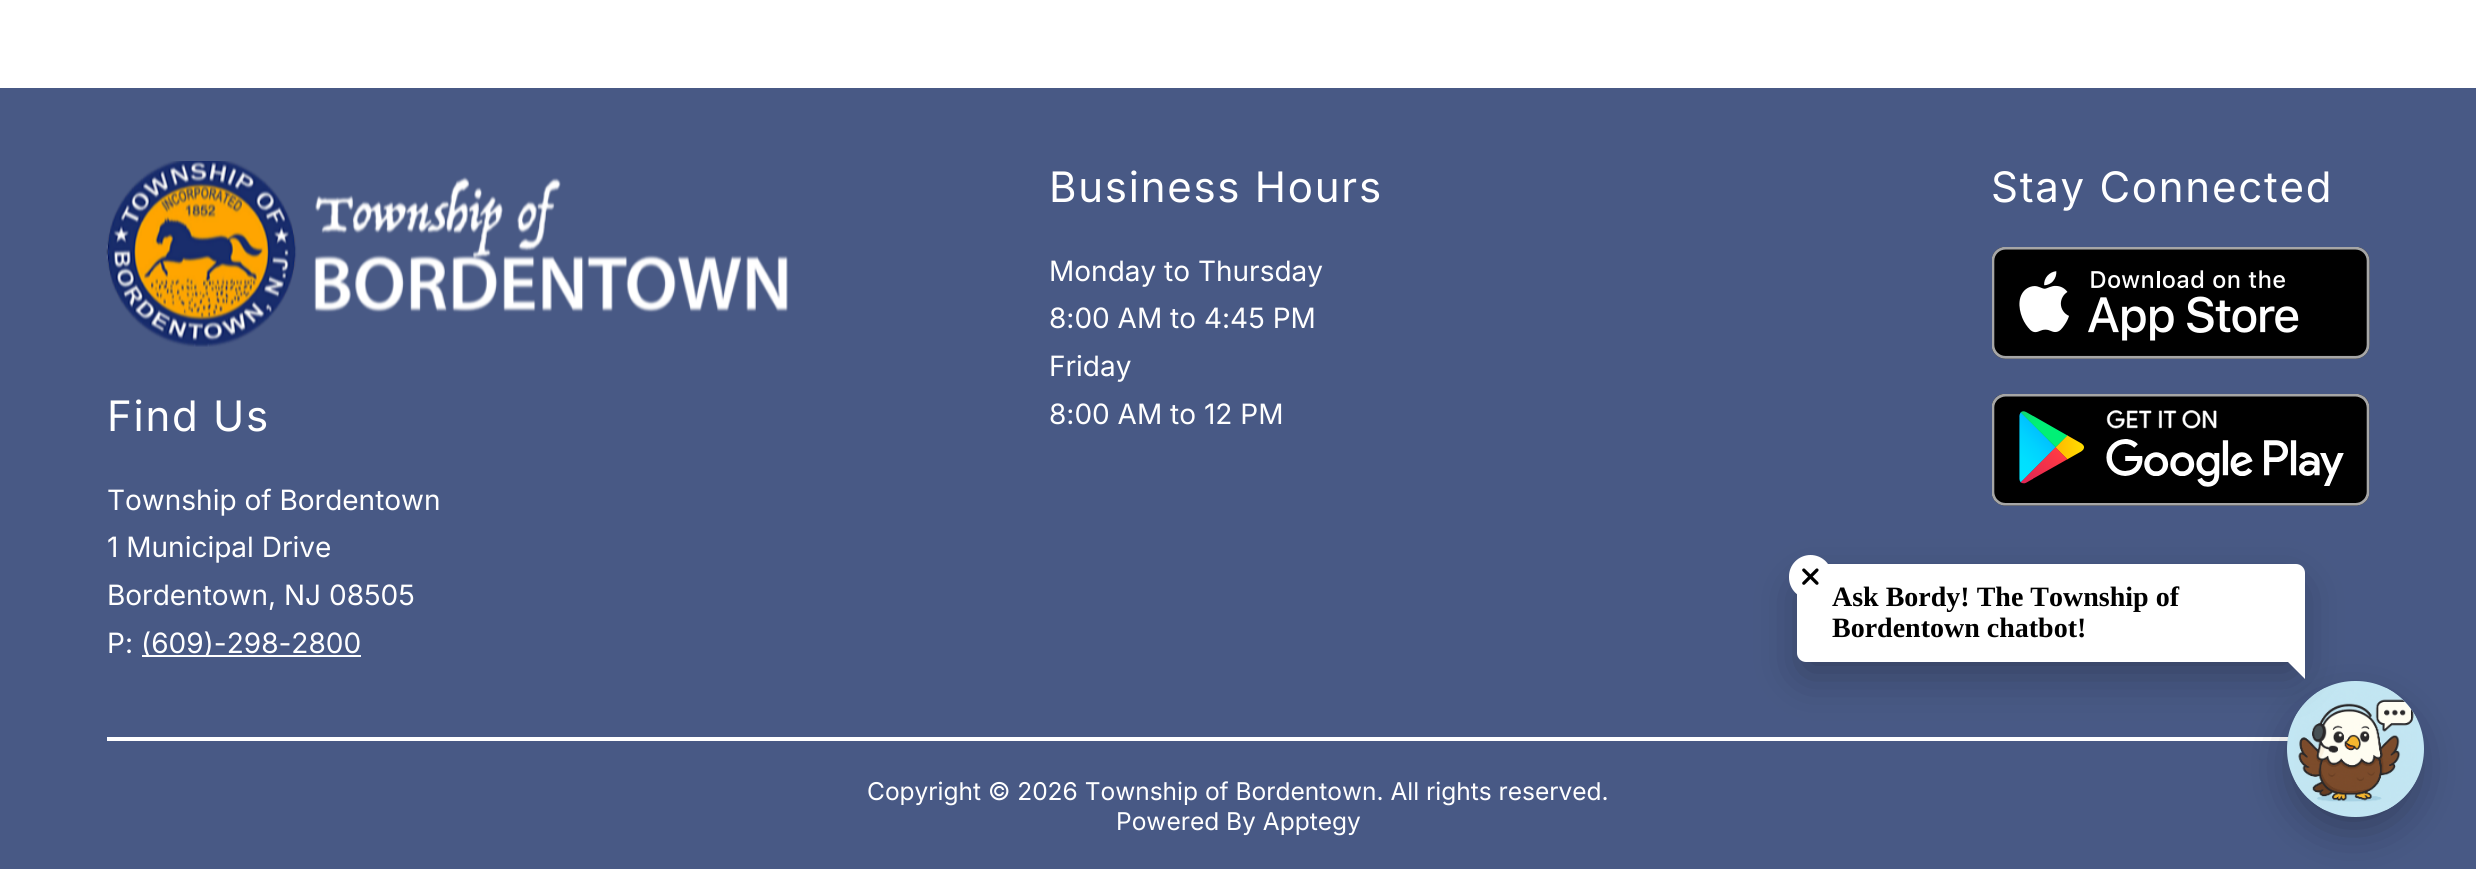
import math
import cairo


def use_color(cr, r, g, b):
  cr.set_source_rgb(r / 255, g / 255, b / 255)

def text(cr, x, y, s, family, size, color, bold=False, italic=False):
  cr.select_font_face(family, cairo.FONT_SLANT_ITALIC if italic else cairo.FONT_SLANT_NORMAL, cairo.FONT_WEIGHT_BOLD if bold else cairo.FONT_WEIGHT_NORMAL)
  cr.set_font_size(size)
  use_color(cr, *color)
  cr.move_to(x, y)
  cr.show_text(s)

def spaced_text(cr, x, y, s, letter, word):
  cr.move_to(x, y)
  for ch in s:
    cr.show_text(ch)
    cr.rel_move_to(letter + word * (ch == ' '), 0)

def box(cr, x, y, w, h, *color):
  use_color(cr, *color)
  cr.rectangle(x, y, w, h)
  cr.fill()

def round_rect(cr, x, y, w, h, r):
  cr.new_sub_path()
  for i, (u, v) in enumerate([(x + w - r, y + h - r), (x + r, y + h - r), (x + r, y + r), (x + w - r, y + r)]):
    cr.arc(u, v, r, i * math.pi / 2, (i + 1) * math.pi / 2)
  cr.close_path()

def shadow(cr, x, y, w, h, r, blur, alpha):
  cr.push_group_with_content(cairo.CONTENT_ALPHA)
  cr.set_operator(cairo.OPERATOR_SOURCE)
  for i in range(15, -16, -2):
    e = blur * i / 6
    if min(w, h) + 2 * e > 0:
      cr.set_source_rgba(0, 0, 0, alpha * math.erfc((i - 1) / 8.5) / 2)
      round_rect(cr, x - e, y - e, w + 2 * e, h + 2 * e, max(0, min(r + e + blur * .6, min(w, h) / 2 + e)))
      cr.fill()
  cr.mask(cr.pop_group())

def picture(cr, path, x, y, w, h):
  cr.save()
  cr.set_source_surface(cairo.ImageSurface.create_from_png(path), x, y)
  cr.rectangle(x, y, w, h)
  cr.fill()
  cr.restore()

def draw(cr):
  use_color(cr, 255, 255, 255)
  cr.paint()
  box(cr, 0, 88, 2476, 781, 72, 89, 133)
  picture(cr, "img_01.png", 1992, 247, 378, 112)
  picture(cr, "img_02.png", 1992, 394, 378, 112)
  picture(cr, "img_03.png", 106, 161, 682, 186)
  box(cr, 142, 655, 219, 2, 255, 255, 255)
  box(cr, 107, 737, 2182, 4, 255, 255, 255)
  use_color(cr, 0, 0, 0)
  shadow(cr, 2294, 707, 119, 119, 59.5, 23.5, 0.32)
  use_color(cr, 194, 230, 243)
  round_rect(cr, 2287, 681, 137, 136, 68)
  cr.fill()
  picture(cr, "img_05.png", 2294, 687, 123, 124)
  use_color(cr, 0, 0, 0)
  shadow(cr, 1804, 590, 490, 80, 0, 23.5, 0.32)
  use_color(cr, 255, 255, 255)
  round_rect(cr, 1797, 564, 508, 98, 9)
  cr.fill()
  round_rect(cr, 1789, 555, 43, 44, 21.5)
  cr.fill()
  picture(cr, "img_04.png", 1802, 568, 17, 17)
  cr.new_path()
  cr.move_to(2305, 609)
  cr.line_to(2305, 679)
  cr.line_to(2270, 644)
  cr.close_path()
  cr.fill()
  cr.select_font_face("Inter")
  cr.set_font_size(42)
  spaced_text(cr, 1049, 202, "Business Hours", 1.75, 0)
  text(cr, 1049, 281, "Monday to Thursday", "Inter", 28, (255, 255, 255))
  text(cr, 1049, 328, "8:00 AM to 4:45 PM", "Inter", 28, (255, 255, 255))
  text(cr, 1049, 376, "Friday", "Inter", 28, (255, 255, 255))
  text(cr, 1049, 424, "8:00 AM to 12 PM", "Inter", 28, (255, 255, 255))
  cr.set_font_size(42)
  spaced_text(cr, 1991, 202, "Stay Connected", 1.75, 0)
  spaced_text(cr, 107, 431, "Find Us", 1.75, 0)
  text(cr, 107, 510, "Township of Bordentown", "Inter", 28, (255, 255, 255))
  text(cr, 107, 557, "1 Municipal Drive", "Inter", 28, (255, 255, 255))
  text(cr, 107, 605, "Bordentown, NJ 08505", "Inter", 28, (255, 255, 255))
  text(cr, 107, 653, "P:", "Inter", 28, (255, 255, 255))
  text(cr, 141, 653, "(609)-298-2800", "Inter", 28, (255, 255, 255))
  text(cr, 867, 800, "Copyright © 2026 Township of Bordentown. All rights reserved.", "Inter", 24.5, (255, 255, 255))
  text(cr, 1116, 830, "Powered By Apptegy", "Inter", 24.5, (255, 255, 255))
  text(cr, 1832, 606, "Ask Bordy! The Township of", "Liberation Serif", 28, (0, 0, 0), bold=True)
  text(cr, 1832, 637, "Bordentown chatbot!", "Liberation Serif", 28, (0, 0, 0), bold=True)


surface = cairo.ImageSurface(cairo.FORMAT_RGB24, 2476, 869)
cr = cairo.Context(surface)
options = cairo.FontOptions()
options.set_hint_metrics(cairo.HINT_METRICS_OFF)
options.set_hint_style(cairo.HINT_STYLE_NONE)
cr.set_font_options(options)
cr.set_miter_limit(4)
draw(cr)
surface.write_to_png("out.png")
